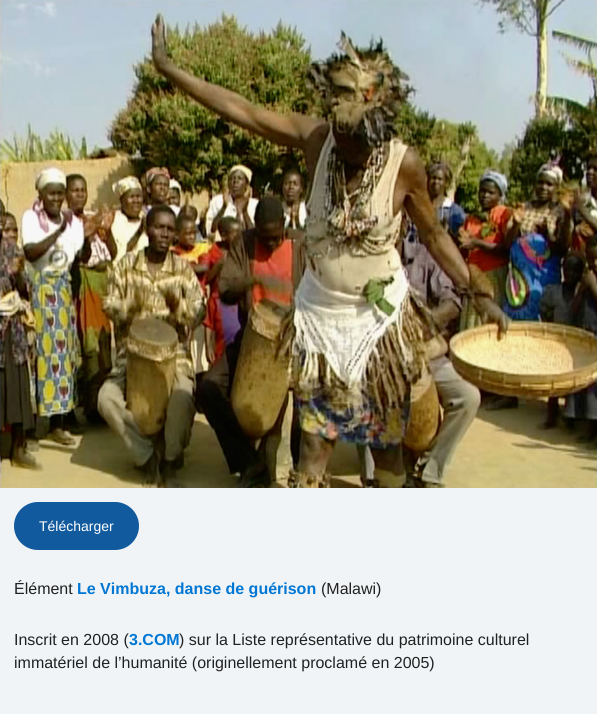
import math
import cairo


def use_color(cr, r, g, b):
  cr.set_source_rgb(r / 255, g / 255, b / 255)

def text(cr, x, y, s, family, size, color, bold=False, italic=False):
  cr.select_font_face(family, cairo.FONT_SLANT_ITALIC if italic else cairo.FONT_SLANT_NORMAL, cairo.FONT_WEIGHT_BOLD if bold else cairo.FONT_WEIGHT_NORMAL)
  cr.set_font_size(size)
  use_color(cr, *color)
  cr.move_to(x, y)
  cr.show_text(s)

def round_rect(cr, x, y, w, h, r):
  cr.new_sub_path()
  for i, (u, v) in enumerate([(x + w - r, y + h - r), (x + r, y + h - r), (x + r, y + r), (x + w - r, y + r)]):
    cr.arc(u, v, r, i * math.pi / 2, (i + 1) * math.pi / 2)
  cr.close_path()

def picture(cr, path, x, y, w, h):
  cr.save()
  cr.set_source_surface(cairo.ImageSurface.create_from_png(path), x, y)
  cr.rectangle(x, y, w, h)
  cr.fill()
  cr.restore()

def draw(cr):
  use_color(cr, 241, 244, 246)
  cr.paint()
  picture(cr, "img_01.png", 0, 0, 597, 488)
  use_color(cr, 17, 90, 158)
  round_rect(cr, 14, 502, 125, 48, 24)
  cr.fill()
  text(cr, 39, 531, "Télécharger", "Liberation Sans", 14, (255, 255, 255))
  text(cr, 14, 594, "Élément", "Liberation Sans", 16, (33, 33, 33))
  text(cr, 77, 594, "Le Vimbuza, danse de guérison", "Liberation Sans", 16, (0, 119, 212), bold=True)
  text(cr, 321, 594, "(Malawi)", "Liberation Sans", 16, (33, 33, 33))
  text(cr, 14, 645, "Inscrit en 2008 (", "Liberation Sans", 16, (33, 33, 33))
  text(cr, 129, 645, "3.COM", "Liberation Sans", 16, (0, 119, 212), bold=True)
  text(cr, 179, 645, ") sur la Liste représentative du patrimoine culturel", "Liberation Sans", 16, (33, 33, 33))
  text(cr, 14, 668, "immatériel de l’humanité (originellement proclamé en 2005)", "Liberation Sans", 16, (33, 33, 33))


surface = cairo.ImageSurface(cairo.FORMAT_RGB24, 597, 714)
cr = cairo.Context(surface)
options = cairo.FontOptions()
options.set_hint_metrics(cairo.HINT_METRICS_OFF)
options.set_hint_style(cairo.HINT_STYLE_NONE)
cr.set_font_options(options)
cr.set_miter_limit(4)
draw(cr)
surface.write_to_png("out.png")
